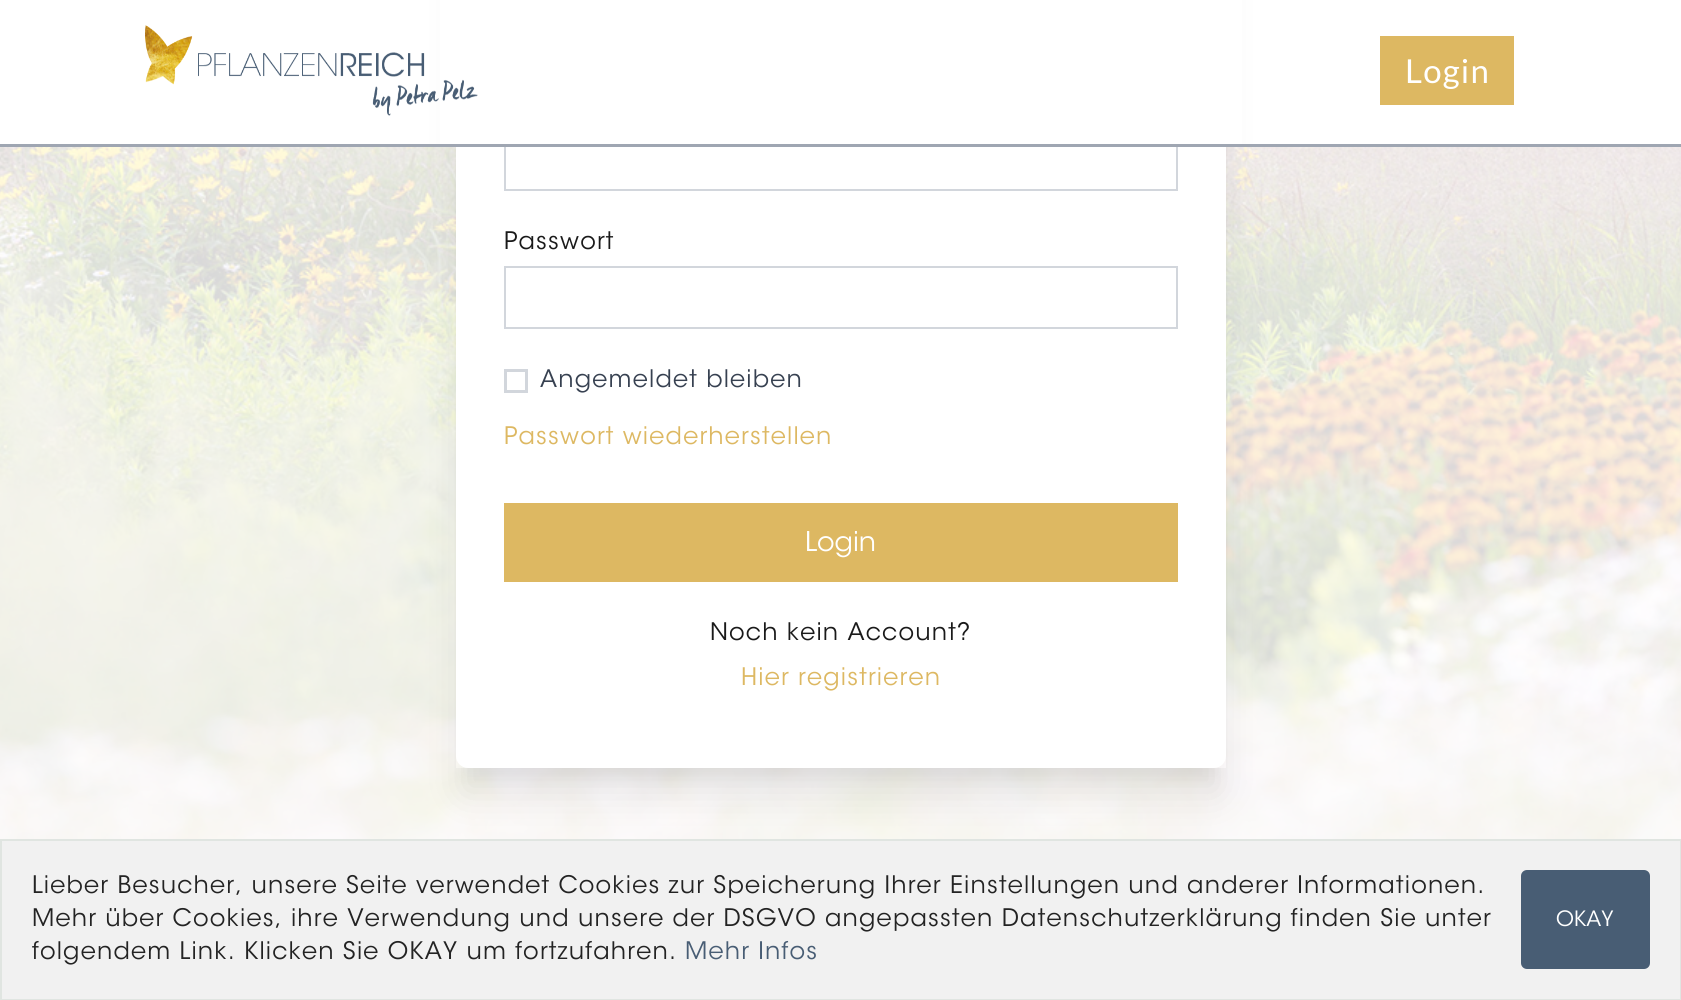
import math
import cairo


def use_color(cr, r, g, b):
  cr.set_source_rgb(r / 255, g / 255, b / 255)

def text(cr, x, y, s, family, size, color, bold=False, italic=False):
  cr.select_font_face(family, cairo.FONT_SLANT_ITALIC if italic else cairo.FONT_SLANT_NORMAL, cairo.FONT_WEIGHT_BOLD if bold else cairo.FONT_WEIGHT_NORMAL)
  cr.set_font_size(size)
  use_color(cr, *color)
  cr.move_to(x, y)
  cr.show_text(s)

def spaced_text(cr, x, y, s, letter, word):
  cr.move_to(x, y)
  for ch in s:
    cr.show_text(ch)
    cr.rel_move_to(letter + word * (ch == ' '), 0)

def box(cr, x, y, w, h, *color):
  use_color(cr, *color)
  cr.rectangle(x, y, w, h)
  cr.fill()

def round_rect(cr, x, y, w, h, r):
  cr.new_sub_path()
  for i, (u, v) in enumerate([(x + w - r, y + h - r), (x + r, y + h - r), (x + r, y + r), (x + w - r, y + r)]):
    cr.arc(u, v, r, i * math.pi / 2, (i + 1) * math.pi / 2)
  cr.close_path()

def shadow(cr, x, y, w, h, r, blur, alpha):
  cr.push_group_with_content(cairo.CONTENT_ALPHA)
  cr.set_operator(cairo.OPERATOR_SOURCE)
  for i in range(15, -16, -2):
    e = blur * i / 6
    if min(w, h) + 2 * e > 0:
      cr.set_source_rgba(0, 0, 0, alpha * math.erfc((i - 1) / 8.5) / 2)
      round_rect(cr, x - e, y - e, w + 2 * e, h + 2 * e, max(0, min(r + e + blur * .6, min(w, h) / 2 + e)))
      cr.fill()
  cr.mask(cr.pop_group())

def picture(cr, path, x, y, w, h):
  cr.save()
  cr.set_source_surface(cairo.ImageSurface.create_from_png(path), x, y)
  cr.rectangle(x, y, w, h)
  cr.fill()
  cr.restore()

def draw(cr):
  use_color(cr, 255, 255, 255)
  cr.paint()
  picture(cr, "img_02.png", 0, 147, 1681, 692)
  use_color(cr, 0, 0, 0)
  shadow(cr, 464, -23, 754, 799, 0, 7.5, 0.04)
  cr.save()
  cr.set_fill_rule(cairo.FILL_RULE_EVEN_ODD)
  cr.new_path()
  cr.move_to(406, 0)
  cr.line_to(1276, 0)
  cr.line_to(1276, 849)
  cr.line_to(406, 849)
  cr.close_path()
  cr.move_to(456, -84)
  cr.line_to(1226, -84)
  cr.line_to(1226, 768)
  cr.line_to(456, 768)
  cr.close_path()
  cr.clip()
  shadow(cr, 464, -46, 754, 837, 0, 19, 0.1)
  cr.restore()
  use_color(cr, 255, 255, 255)
  round_rect(cr, 456, -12, 770, 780, 12)
  cr.fill()
  cr.rectangle(505, 129, 672, 61)
  use_color(cr, 210, 214, 220)
  cr.stroke()
  box(cr, 440, 0, 802, 144, 255, 255, 255)
  box(cr, 0, 144, 1681, 3, 159, 166, 178)
  picture(cr, "img_01.png", 145, 25, 333, 91)
  box(cr, 1380, 36, 134, 69, 221, 184, 98)
  cr.rectangle(505, 267, 672, 61)
  use_color(cr, 210, 214, 220)
  cr.stroke()
  cr.rectangle(505.5, 370.5, 21, 21)
  cr.set_line_width(3)
  cr.stroke()
  box(cr, 504, 503, 674, 79, 221, 184, 98)
  use_color(cr, 241, 241, 241)
  cr.rectangle(1, 840, 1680, 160)
  cr.fill_preserve()
  use_color(cr, 224, 229, 225)
  cr.set_line_width(2)
  cr.stroke()
  use_color(cr, 72, 93, 116)
  round_rect(cr, 1521, 870, 129, 99, 6)
  cr.fill()
  cr.select_font_face("Lato")
  cr.set_font_size(33)
  use_color(cr, 255, 255, 255)
  spaced_text(cr, 1405, 83, "Login", 1.2, 0)
  cr.select_font_face("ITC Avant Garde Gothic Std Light")
  cr.set_font_size(24)
  use_color(cr, 26, 26, 26)
  spaced_text(cr, 504, 249, "Passwort", 1.2, 0)
  use_color(cr, 55, 65, 81)
  spaced_text(cr, 540, 387, "Angemeldet bleiben", 1.2, 0)
  use_color(cr, 221, 184, 98)
  spaced_text(cr, 504, 444, "Passwort wiederherstellen", 1.2, 0)
  text(cr, 805, 551, "Login", "ITC Avant Garde Gothic Std Light", 27, (255, 255, 255))
  cr.set_font_size(24)
  use_color(cr, 26, 26, 26)
  spaced_text(cr, 710, 640, "Noch kein Account?", 1.2, 0)
  use_color(cr, 221, 184, 98)
  spaced_text(cr, 741, 685, "Hier registrieren", 1.2, 0)
  use_color(cr, 35, 35, 35)
  spaced_text(cr, 32, 893, "Lieber Besucher, unsere Seite verwendet Cookies zur Speicherung Ihrer Einstellungen und anderer Informationen.", 1.2, 0)
  spaced_text(cr, 32, 926, "Mehr über Cookies, ihre Verwendung und unsere der DSGVO angepassten Datenschutzerklärung finden Sie unter", 1.2, 0)
  spaced_text(cr, 32, 959, "folgendem Link. Klicken Sie OKAY um fortzufahren.", 1.2, 0)
  use_color(cr, 72, 93, 116)
  spaced_text(cr, 685, 959, "Mehr Infos", 1.2, 0)
  text(cr, 1556, 926, "OKAY", "ITC Avant Garde Gothic Std Light", 21, (255, 255, 255))


surface = cairo.ImageSurface(cairo.FORMAT_RGB24, 1681, 1000)
cr = cairo.Context(surface)
options = cairo.FontOptions()
options.set_hint_metrics(cairo.HINT_METRICS_OFF)
options.set_hint_style(cairo.HINT_STYLE_NONE)
cr.set_font_options(options)
cr.set_miter_limit(4)
draw(cr)
surface.write_to_png("out.png")
